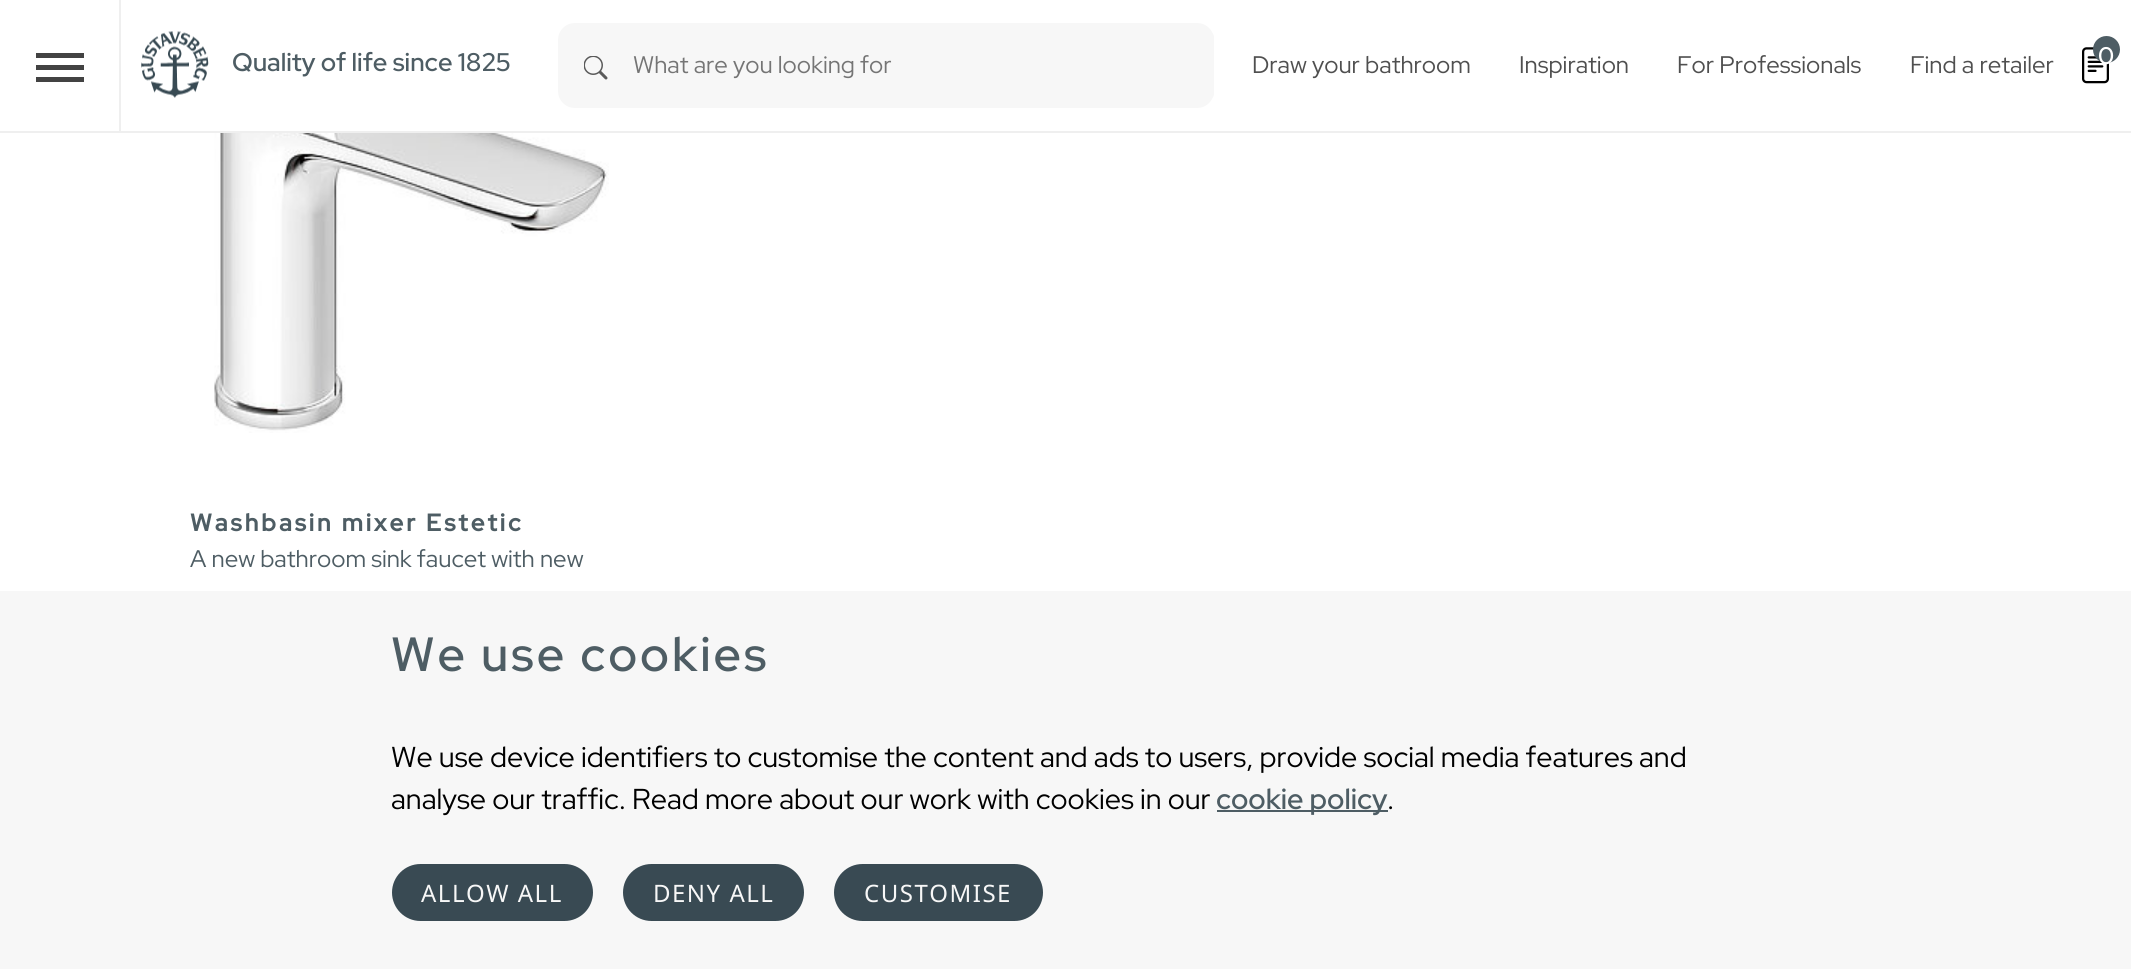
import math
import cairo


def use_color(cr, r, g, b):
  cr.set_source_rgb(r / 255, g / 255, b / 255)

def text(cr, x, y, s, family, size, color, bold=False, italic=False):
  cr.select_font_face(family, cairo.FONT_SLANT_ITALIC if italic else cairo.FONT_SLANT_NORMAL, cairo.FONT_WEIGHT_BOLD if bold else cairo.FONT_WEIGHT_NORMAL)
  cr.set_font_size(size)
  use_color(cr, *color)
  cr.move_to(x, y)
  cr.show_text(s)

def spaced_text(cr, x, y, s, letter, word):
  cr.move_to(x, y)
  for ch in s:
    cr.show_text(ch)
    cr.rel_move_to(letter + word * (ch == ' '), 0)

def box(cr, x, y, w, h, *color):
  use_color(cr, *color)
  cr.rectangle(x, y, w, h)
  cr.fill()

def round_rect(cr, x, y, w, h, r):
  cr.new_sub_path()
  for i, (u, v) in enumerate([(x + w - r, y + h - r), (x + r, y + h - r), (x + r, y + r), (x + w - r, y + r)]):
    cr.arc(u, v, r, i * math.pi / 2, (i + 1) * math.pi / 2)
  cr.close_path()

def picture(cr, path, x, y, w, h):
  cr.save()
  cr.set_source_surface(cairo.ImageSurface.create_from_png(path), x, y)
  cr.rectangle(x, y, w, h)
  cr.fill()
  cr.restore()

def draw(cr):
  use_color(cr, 255, 255, 255)
  cr.paint()
  box(cr, 0, 131, 2131, 2, 239, 239, 239)
  box(cr, 119, 0, 2, 131, 239, 239, 239)
  box(cr, 36, 65, 48, 5, 67, 67, 67)
  box(cr, 36, 53, 48, 5, 67, 67, 67)
  box(cr, 36, 77, 48, 5, 67, 67, 67)
  picture(cr, "img_01.png", 141, 31, 68, 67)
  use_color(cr, 247, 247, 247)
  round_rect(cr, 558, 23, 656, 85, 17)
  cr.fill()
  picture(cr, "img_02.png", 584, 56, 24, 24)
  cr.new_path()
  cr.move_to(633, 30)
  cr.line_to(1206, 30)
  cr.curve_to(1210.5, 30, 1214, 33.5, 1214, 38)
  cr.line_to(1214, 93)
  cr.curve_to(1214, 97.5, 1210.5, 101, 1206, 101)
  cr.line_to(633, 101)
  cr.close_path()
  cr.fill()
  picture(cr, "img_03.png", 2082, 47, 27, 37)
  use_color(cr, 78, 93, 100)
  cr.arc(2106.5, 49.5, 13.5, 0, 2 * math.pi)
  cr.fill()
  picture(cr, "img_04.png", 214, 133, 395, 300)
  box(cr, 0, 591, 2131, 378, 247, 247, 247)
  box(cr, 1217, 810, 171, 2, 78, 93, 100)
  use_color(cr, 57, 74, 83)
  round_rect(cr, 392, 864, 201, 57, 28.5)
  cr.fill()
  round_rect(cr, 623, 864, 181, 57, 28.5)
  cr.fill()
  round_rect(cr, 834, 864, 209, 57, 28.5)
  cr.fill()
  text(cr, 232, 71, "Quality of life since 1825", "Red Hat Display Medium", 25.5, (78, 93, 100))
  text(cr, 633, 73, "What are you looking for", "Red Hat Display", 24, (117, 117, 117))
  text(cr, 1252, 73, "Draw your bathroom", "Red Hat Display", 24, (79, 79, 79))
  text(cr, 1519, 73, "Inspiration", "Red Hat Display", 24, (79, 79, 79))
  text(cr, 1677, 73, "For Professionals", "Red Hat Display", 24, (79, 79, 79))
  text(cr, 1910, 73, "Find a retailer", "Red Hat Display", 24, (79, 79, 79))
  text(cr, 2098, 64, "0", "Red Hat Display Medium", 24, (255, 255, 255))
  cr.select_font_face("Red Hat Display", cairo.FONT_SLANT_NORMAL, cairo.FONT_WEIGHT_BOLD)
  use_color(cr, 78, 93, 100)
  spaced_text(cr, 190, 531, "Washbasin mixer Estetic", 3, 0)
  text(cr, 190, 567, "A new bathroom sink faucet with new", "Red Hat Display", 24, (78, 93, 100))
  cr.select_font_face("Red Hat Display Medium")
  cr.set_font_size(48)
  spaced_text(cr, 391, 671, "We use cookies", 3, 0)
  text(cr, 391, 767, "We use device identifiers to customise the content and ads to users, provide social media features and", "Red Hat Display", 28.8, (0, 0, 0))
  text(cr, 391, 809, "analyse our traffic. Read more about our work with cookies in our", "Red Hat Display", 28.8, (0, 0, 0))
  text(cr, 1216, 809, "cookie policy", "Red Hat Display Medium", 28.8, (78, 93, 100))
  text(cr, 1387, 809, ".", "Red Hat Display", 28.8, (0, 0, 0))
  cr.select_font_face("Noto Sans")
  cr.set_font_size(24)
  use_color(cr, 247, 247, 247)
  spaced_text(cr, 421, 902, "ALLOW ALL", 1.5, 0)
  spaced_text(cr, 653, 902, "DENY ALL", 1.5, 0)
  spaced_text(cr, 864, 902, "CUSTOMISE", 1.5, 0)


surface = cairo.ImageSurface(cairo.FORMAT_RGB24, 2131, 969)
cr = cairo.Context(surface)
options = cairo.FontOptions()
options.set_hint_metrics(cairo.HINT_METRICS_OFF)
options.set_hint_style(cairo.HINT_STYLE_NONE)
cr.set_font_options(options)
cr.set_miter_limit(4)
draw(cr)
surface.write_to_png("out.png")
